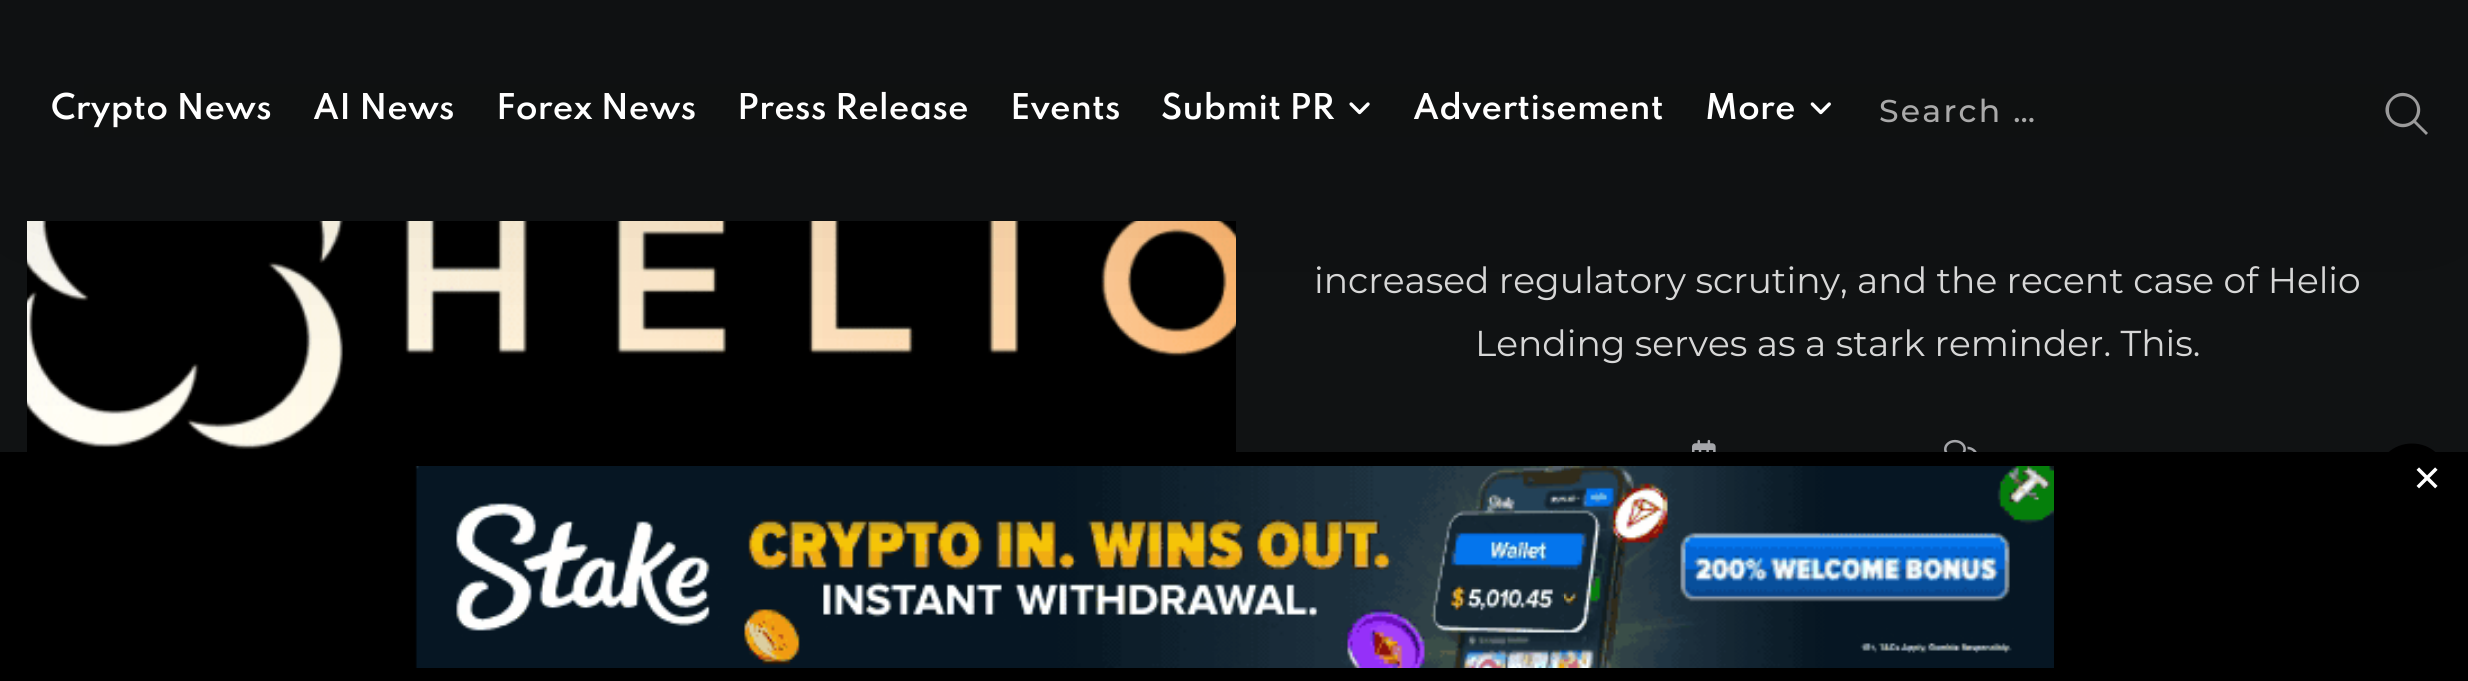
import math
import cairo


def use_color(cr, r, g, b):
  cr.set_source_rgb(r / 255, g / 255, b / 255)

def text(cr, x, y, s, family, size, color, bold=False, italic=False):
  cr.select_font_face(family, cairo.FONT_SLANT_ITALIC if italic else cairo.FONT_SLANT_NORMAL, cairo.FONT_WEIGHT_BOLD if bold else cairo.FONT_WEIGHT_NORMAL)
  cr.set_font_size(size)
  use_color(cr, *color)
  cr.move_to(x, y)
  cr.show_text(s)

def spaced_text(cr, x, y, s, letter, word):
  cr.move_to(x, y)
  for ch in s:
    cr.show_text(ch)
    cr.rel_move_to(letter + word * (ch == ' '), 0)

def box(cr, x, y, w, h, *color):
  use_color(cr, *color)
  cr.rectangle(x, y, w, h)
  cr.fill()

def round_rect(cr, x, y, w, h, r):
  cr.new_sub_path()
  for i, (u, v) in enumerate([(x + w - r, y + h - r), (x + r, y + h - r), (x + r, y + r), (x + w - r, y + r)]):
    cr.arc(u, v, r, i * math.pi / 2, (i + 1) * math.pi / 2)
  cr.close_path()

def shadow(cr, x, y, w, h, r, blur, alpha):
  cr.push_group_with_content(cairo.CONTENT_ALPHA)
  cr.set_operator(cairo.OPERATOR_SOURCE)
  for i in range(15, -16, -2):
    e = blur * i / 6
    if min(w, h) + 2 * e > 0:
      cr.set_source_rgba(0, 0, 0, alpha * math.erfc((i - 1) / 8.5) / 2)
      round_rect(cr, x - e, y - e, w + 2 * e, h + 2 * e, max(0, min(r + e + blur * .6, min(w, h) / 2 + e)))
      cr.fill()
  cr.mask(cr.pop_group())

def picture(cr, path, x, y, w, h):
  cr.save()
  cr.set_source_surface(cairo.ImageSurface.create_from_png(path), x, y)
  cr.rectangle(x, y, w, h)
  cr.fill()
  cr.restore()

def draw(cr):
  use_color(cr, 16, 18, 19)
  cr.paint()
  picture(cr, "img_03.png", 27, 221, 1209, 231)
  picture(cr, "img_04.png", 1692, 439, 24, 13)
  picture(cr, "img_05.png", 1944, 439, 33, 13)
  use_color(cr, 0, 0, 0)
  shadow(cr, 0, 0, 2468, 221, 0, 101, 0.1)
  picture(cr, "img_01.png", 1349, 102, 21, 13)
  picture(cr, "img_02.png", 1810, 102, 21, 13)
  use_color(cr, 155, 155, 155)
  cr.new_path()
  cr.move_to(2428, 133)
  cr.line_to(2416, 121)
  cr.curve_to(2430, 104, 2406, 83, 2391, 98)
  cr.curve_to(2375, 113, 2397, 137, 2414, 123)
  cr.line_to(2426, 135)
  cr.close_path()
  cr.move_to(2389, 110)
  cr.curve_to(2389, 91, 2417, 92, 2417, 110)
  cr.curve_to(2416, 129, 2389, 128, 2389, 110)
  cr.close_path()
  cr.fill()
  box(cr, 0, 452, 2468, 229, 0, 0, 0)
  picture(cr, "img_06.png", 415, 466, 1639, 202)
  cr.new_path()
  cr.move_to(2412, 443.5)
  cr.curve_to(2431, 443.5, 2446, 457.5, 2446, 475)
  cr.curve_to(2446, 492.5, 2431, 506.5, 2412, 506.5)
  cr.curve_to(2393, 506.5, 2378, 492.5, 2378, 475)
  cr.curve_to(2378, 457.5, 2393, 443.5, 2412, 443.5)
  cr.close_path()
  cr.fill()
  text(cr, 51, 119, "Crypto News", "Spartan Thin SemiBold", 31.5, (255, 255, 255))
  text(cr, 313, 119, "AI News", "Spartan Thin SemiBold", 31.5, (255, 255, 255))
  text(cr, 496, 119, "Forex News", "Spartan Thin SemiBold", 31.5, (255, 255, 255))
  text(cr, 737, 119, "Press Release", "Spartan Thin SemiBold", 31.5, (255, 255, 255))
  text(cr, 1010, 119, "Events", "Spartan Thin SemiBold", 31.5, (255, 255, 255))
  text(cr, 1161, 119, "Submit PR", "Spartan Thin SemiBold", 31.5, (255, 255, 255))
  text(cr, 1413, 119, "Advertisement", "Spartan Thin SemiBold", 31.5, (255, 255, 255))
  text(cr, 1705, 119, "More", "Spartan Thin SemiBold", 31.5, (255, 255, 255))
  cr.select_font_face("Montserrat Medium")
  use_color(cr, 170, 170, 170)
  spaced_text(cr, 1879, 122, "Search …", 2.25, 0)
  text(cr, 1314, 293, "increased regulatory scrutiny, and the recent case of Helio", "Montserrat", 36, (215, 215, 215))
  text(cr, 1475, 356, "Lending serves as a stark reminder. This.", "Montserrat", 36, (215, 215, 215))
  text(cr, 2412, 491, "✕", "DejaVu Sans", 36, (255, 255, 255))


surface = cairo.ImageSurface(cairo.FORMAT_RGB24, 2468, 681)
cr = cairo.Context(surface)
options = cairo.FontOptions()
options.set_hint_metrics(cairo.HINT_METRICS_OFF)
options.set_hint_style(cairo.HINT_STYLE_NONE)
cr.set_font_options(options)
cr.set_miter_limit(4)
draw(cr)
surface.write_to_png("out.png")
